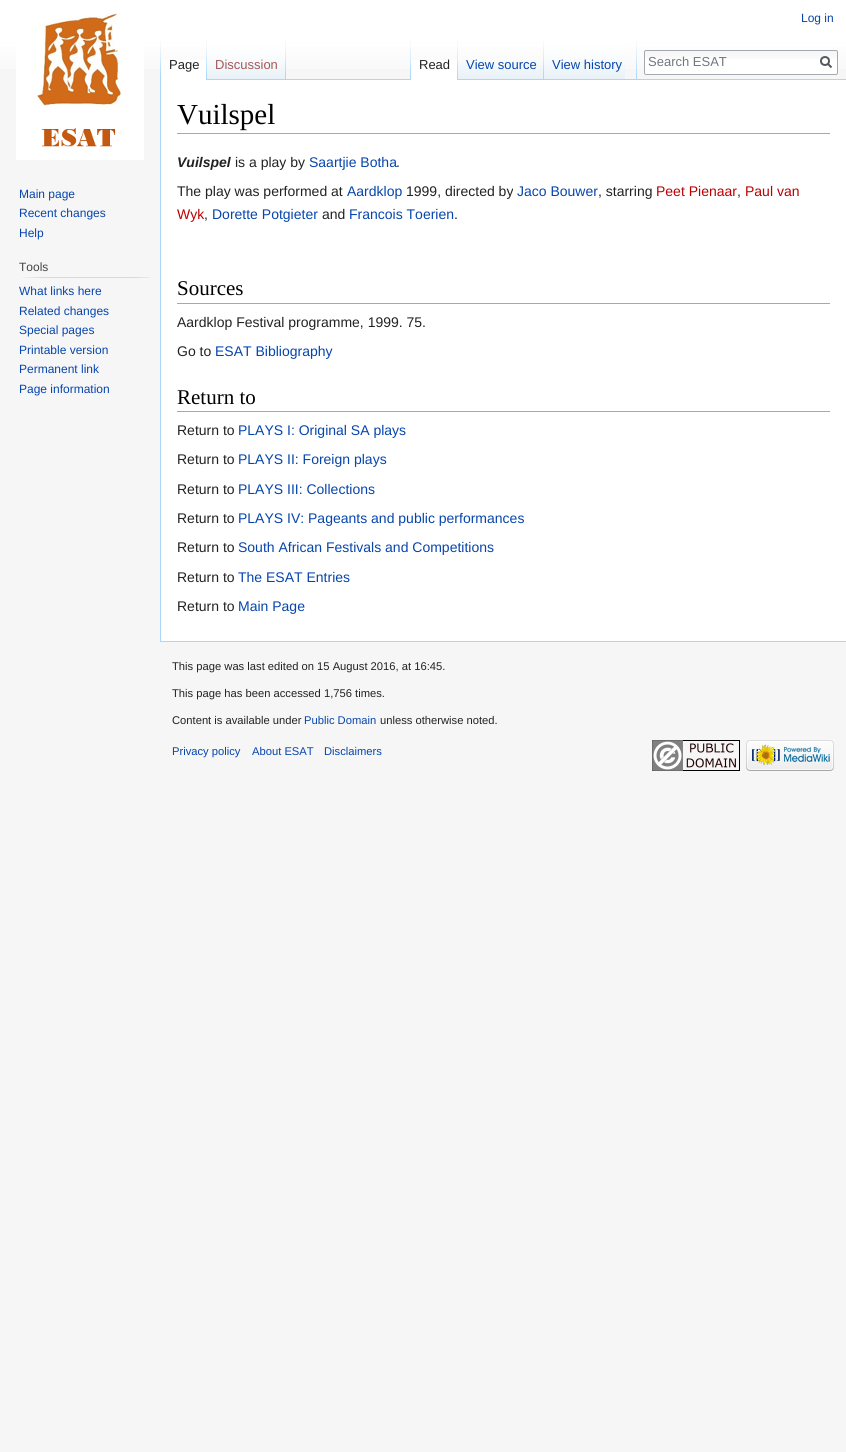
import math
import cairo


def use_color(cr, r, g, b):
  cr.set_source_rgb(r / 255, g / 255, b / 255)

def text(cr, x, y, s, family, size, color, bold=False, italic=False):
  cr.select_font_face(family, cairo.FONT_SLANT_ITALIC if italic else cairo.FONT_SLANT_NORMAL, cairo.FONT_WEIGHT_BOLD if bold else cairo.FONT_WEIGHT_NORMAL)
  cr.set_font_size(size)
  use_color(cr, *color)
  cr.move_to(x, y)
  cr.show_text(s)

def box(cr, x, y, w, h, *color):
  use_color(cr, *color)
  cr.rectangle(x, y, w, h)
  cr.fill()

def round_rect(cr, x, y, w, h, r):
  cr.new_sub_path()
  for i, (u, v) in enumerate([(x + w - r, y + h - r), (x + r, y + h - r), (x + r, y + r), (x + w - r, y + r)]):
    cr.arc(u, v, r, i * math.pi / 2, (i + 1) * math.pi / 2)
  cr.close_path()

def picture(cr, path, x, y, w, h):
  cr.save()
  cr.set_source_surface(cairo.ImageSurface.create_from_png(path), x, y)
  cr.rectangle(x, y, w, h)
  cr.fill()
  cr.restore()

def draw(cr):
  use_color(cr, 246, 246, 246)
  cr.paint()
  gradient = cairo.LinearGradient(423, 0, 423, 80)
  gradient.add_color_stop_rgba(0.5, 1, 1, 1, 1)
  gradient.add_color_stop_rgba(1, 0.965, 0.965, 0.965, 1)
  cr.set_source(gradient)
  cr.rectangle(0, 0, 846, 69)
  cr.fill()
  picture(cr, "img_01.png", 160, 40, 1, 39)
  box(cr, 161, 60, 45, 20, 255, 255, 255)
  picture(cr, "img_02.png", 206, 40, 1, 40)
  picture(cr, "img_03.png", 207, 40, 78, 39)
  picture(cr, "img_01.png", 285, 40, 1, 39)
  picture(cr, "img_01.png", 410, 40, 1, 39)
  box(cr, 207, 79, 639, 1, 167, 215, 249)
  box(cr, 411, 60, 46, 20, 255, 255, 255)
  picture(cr, "img_02.png", 457, 40, 1, 40)
  picture(cr, "img_04.png", 458, 62, 85, 17)
  picture(cr, "img_01.png", 543, 40, 1, 39)
  picture(cr, "img_05.png", 544, 40, 81, 39)
  picture(cr, "img_01.png", 636, 40, 1, 39)
  round_rect(cr, 644, 50, 194, 25, 2)
  cr.fill()
  picture(cr, "img_06.png", 644, 51, 194, 8)
  round_rect(cr, 644.5, 50.5, 193, 24, 1.5)
  use_color(cr, 162, 169, 177)
  cr.set_line_width(1)
  cr.stroke()
  cr.new_path()
  cr.move_to(831.5, 67.5)
  cr.line_to(827.5, 63.5)
  use_color(cr, 84, 89, 93)
  cr.set_line_width(2)
  cr.stroke()
  cr.arc(825, 61, 4, 0, 2 * math.pi)
  cr.stroke()
  picture(cr, "img_07.png", 16, 11, 128, 149)
  picture(cr, "img_08.png", 22, 277, 128, 1)
  box(cr, 161, 80, 685, 561, 255, 255, 255)
  box(cr, 160, 641, 686, 1, 167, 215, 249)
  box(cr, 160, 79, 1, 563, 167, 215, 249)
  box(cr, 177, 133, 653, 1, 162, 169, 177)
  box(cr, 177, 303, 653, 1, 162, 169, 177)
  box(cr, 177, 411, 653, 1, 162, 169, 177)
  picture(cr, "img_09.png", 652, 740, 88, 31)
  picture(cr, "img_10.png", 746, 740, 88, 31)
  text(cr, 801, 22, "Log in", "Liberation Sans", 12, (6, 69, 173))
  text(cr, 169, 69, "Page", "Liberation Sans", 13, (34, 34, 34))
  text(cr, 215, 69, "Discussion", "Liberation Sans", 13, (165, 88, 88))
  text(cr, 419, 69, "Read", "Liberation Sans", 13, (34, 34, 34))
  text(cr, 466, 69, "View source", "Liberation Sans", 13, (6, 69, 173))
  text(cr, 552, 69, "View history", "Liberation Sans", 13, (6, 69, 173))
  text(cr, 648, 66, "Search ESAT", "Liberation Sans", 13, (114, 119, 125))
  text(cr, 19, 198, "Main page", "Liberation Sans", 12, (6, 69, 173))
  text(cr, 19, 217, "Recent changes", "Liberation Sans", 12, (6, 69, 173))
  text(cr, 19, 237, "Help", "Liberation Sans", 12, (6, 69, 173))
  text(cr, 19, 271, "Tools", "Liberation Sans", 12, (68, 68, 68))
  text(cr, 19, 295, "What links here", "Liberation Sans", 12, (6, 69, 173))
  text(cr, 19, 315, "Related changes", "Liberation Sans", 12, (6, 69, 173))
  text(cr, 19, 334, "Special pages", "Liberation Sans", 12, (6, 69, 173))
  text(cr, 19, 354, "Printable version", "Liberation Sans", 12, (6, 69, 173))
  text(cr, 19, 373, "Permanent link", "Liberation Sans", 12, (6, 69, 173))
  text(cr, 19, 393, "Page information", "Liberation Sans", 12, (6, 69, 173))
  text(cr, 177, 124, "Vuilspel", "Liberation Serif", 29, (0, 0, 0))
  text(cr, 177, 167, "Vuilspel", "Liberation Sans", 14, (34, 34, 34), bold=True, italic=True)
  text(cr, 235, 167, "is a play by", "Liberation Sans", 14, (34, 34, 34))
  text(cr, 309, 167, "Saartjie Botha", "Liberation Sans", 14, (6, 69, 173))
  text(cr, 396, 167, ".", "Liberation Sans", 14, (34, 34, 34))
  text(cr, 177, 196, "The play was performed at", "Liberation Sans", 14, (34, 34, 34))
  text(cr, 347, 196, "Aardklop", "Liberation Sans", 14, (6, 69, 173))
  text(cr, 406, 196, "1999, directed by", "Liberation Sans", 14, (34, 34, 34))
  text(cr, 517, 196, "Jaco Bouwer", "Liberation Sans", 14, (6, 69, 173))
  text(cr, 598, 196, ", starring", "Liberation Sans", 14, (34, 34, 34))
  text(cr, 656, 196, "Peet Pienaar", "Liberation Sans", 14, (186, 0, 0))
  text(cr, 737, 196, ",", "Liberation Sans", 14, (34, 34, 34))
  text(cr, 745, 196, "Paul van", "Liberation Sans", 14, (186, 0, 0))
  text(cr, 177, 219, "Wyk", "Liberation Sans", 14, (186, 0, 0))
  text(cr, 204, 219, ",", "Liberation Sans", 14, (34, 34, 34))
  text(cr, 212, 219, "Dorette Potgieter", "Liberation Sans", 14, (6, 69, 173))
  text(cr, 322, 219, "and", "Liberation Sans", 14, (34, 34, 34))
  text(cr, 349, 219, "Francois Toerien", "Liberation Sans", 14, (6, 69, 173))
  text(cr, 454, 219, ".", "Liberation Sans", 14, (34, 34, 34))
  text(cr, 177, 295, "Sources", "Liberation Serif", 21, (0, 0, 0))
  text(cr, 177, 327, "Aardklop Festival programme, 1999. 75.", "Liberation Sans", 14, (34, 34, 34))
  text(cr, 177, 356, "Go to", "Liberation Sans", 14, (34, 34, 34))
  text(cr, 215, 356, "ESAT Bibliography", "Liberation Sans", 14, (6, 69, 173))
  text(cr, 177, 404, "Return to", "Liberation Serif", 21, (0, 0, 0))
  text(cr, 177, 435, "Return to", "Liberation Sans", 14, (34, 34, 34))
  text(cr, 238, 435, "PLAYS I: Original SA plays", "Liberation Sans", 14, (6, 69, 173))
  text(cr, 177, 464, "Return to", "Liberation Sans", 14, (34, 34, 34))
  text(cr, 238, 464, "PLAYS II: Foreign plays", "Liberation Sans", 14, (6, 69, 173))
  text(cr, 177, 494, "Return to", "Liberation Sans", 14, (34, 34, 34))
  text(cr, 238, 494, "PLAYS III: Collections", "Liberation Sans", 14, (6, 69, 173))
  text(cr, 177, 523, "Return to", "Liberation Sans", 14, (34, 34, 34))
  text(cr, 238, 523, "PLAYS IV: Pageants and public performances", "Liberation Sans", 14, (6, 69, 173))
  text(cr, 177, 552, "Return to", "Liberation Sans", 14, (34, 34, 34))
  text(cr, 238, 552, "South African Festivals and Competitions", "Liberation Sans", 14, (6, 69, 173))
  text(cr, 177, 582, "Return to", "Liberation Sans", 14, (34, 34, 34))
  text(cr, 238, 582, "The ESAT Entries", "Liberation Sans", 14, (6, 69, 173))
  text(cr, 177, 611, "Return to", "Liberation Sans", 14, (34, 34, 34))
  text(cr, 238, 611, "Main Page", "Liberation Sans", 14, (6, 69, 173))
  text(cr, 172, 670, "This page was last edited on 15 August 2016, at 16:45.", "Liberation Sans", 11.2, (34, 34, 34))
  text(cr, 172, 697, "This page has been accessed 1,756 times.", "Liberation Sans", 11.2, (34, 34, 34))
  text(cr, 172, 724, "Content is available under", "Liberation Sans", 11.2, (34, 34, 34))
  text(cr, 304, 724, "Public Domain", "Liberation Sans", 11.2, (6, 69, 173))
  text(cr, 380, 724, "unless otherwise noted.", "Liberation Sans", 11.2, (34, 34, 34))
  text(cr, 172, 755, "Privacy policy", "Liberation Sans", 11.2, (6, 69, 173))
  text(cr, 252, 755, "About ESAT", "Liberation Sans", 11.2, (6, 69, 173))
  text(cr, 324, 755, "Disclaimers", "Liberation Sans", 11.2, (6, 69, 173))


surface = cairo.ImageSurface(cairo.FORMAT_RGB24, 846, 1452)
cr = cairo.Context(surface)
options = cairo.FontOptions()
options.set_hint_metrics(cairo.HINT_METRICS_OFF)
options.set_hint_style(cairo.HINT_STYLE_NONE)
cr.set_font_options(options)
cr.set_miter_limit(4)
draw(cr)
surface.write_to_png("out.png")
